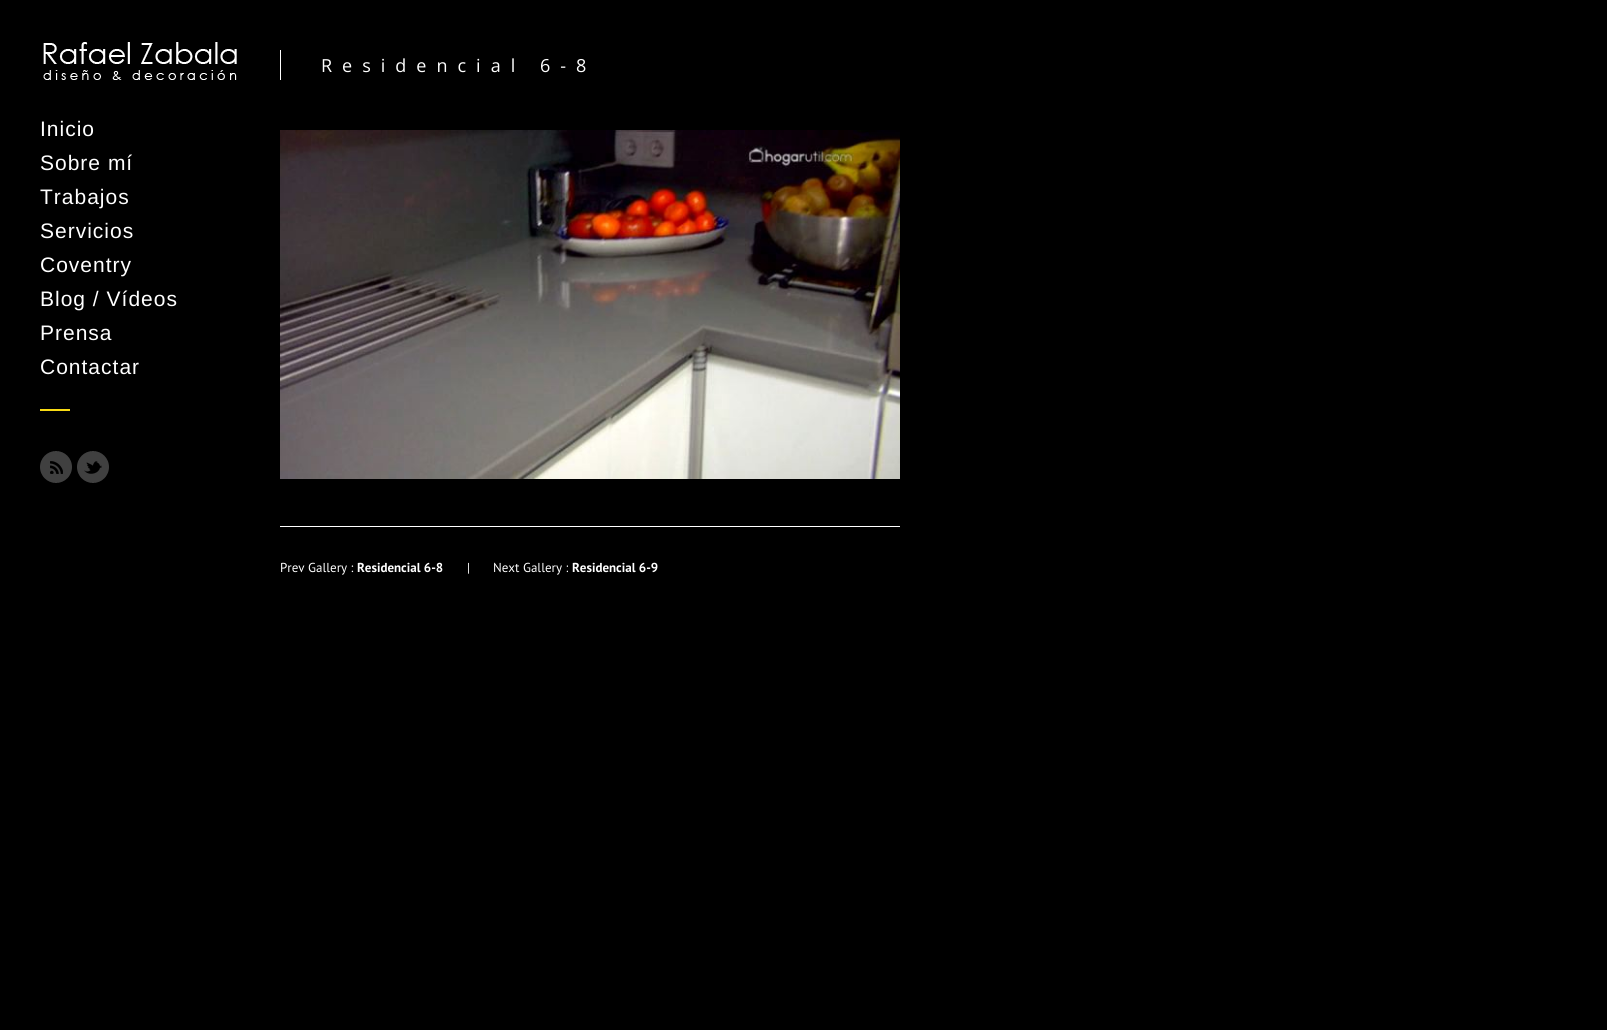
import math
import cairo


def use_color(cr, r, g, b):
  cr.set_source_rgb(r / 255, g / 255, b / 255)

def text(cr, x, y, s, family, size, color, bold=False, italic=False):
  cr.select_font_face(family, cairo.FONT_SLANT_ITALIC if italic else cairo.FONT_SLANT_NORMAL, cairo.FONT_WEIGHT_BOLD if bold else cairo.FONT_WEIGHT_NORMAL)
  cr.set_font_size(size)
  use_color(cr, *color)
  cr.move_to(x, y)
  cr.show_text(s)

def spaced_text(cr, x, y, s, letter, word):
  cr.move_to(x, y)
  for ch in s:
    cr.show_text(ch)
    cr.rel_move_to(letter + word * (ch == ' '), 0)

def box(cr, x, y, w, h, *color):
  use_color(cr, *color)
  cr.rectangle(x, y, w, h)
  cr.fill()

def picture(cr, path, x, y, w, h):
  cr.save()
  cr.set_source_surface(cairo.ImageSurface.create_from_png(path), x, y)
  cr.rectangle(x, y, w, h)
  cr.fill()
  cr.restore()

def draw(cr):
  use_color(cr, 0, 0, 0)
  cr.paint()
  picture(cr, "img_01.png", 43, 42, 194, 38)
  box(cr, 40, 409, 30, 2, 248, 219, 20)
  picture(cr, "img_02.png", 40, 451, 32, 32)
  picture(cr, "img_03.png", 77, 451, 32, 32)
  box(cr, 280, 50, 1, 30, 255, 255, 255)
  picture(cr, "img_04.png", 280, 130, 620, 349)
  box(cr, 280, 526, 620, 1, 255, 255, 255)
  cr.select_font_face("Liberation Sans")
  cr.set_font_size(21)
  spaced_text(cr, 40, 136, "Inicio", 1, 0)
  spaced_text(cr, 40, 170, "Sobre mí", 1, 0)
  spaced_text(cr, 40, 204, "Trabajos", 1, 0)
  spaced_text(cr, 40, 238, "Servicios", 1, 0)
  spaced_text(cr, 40, 272, "Coventry", 1, 0)
  spaced_text(cr, 40, 306, "Blog / Vídeos", 1, 0)
  spaced_text(cr, 40, 340, "Prensa", 1, 0)
  spaced_text(cr, 40, 374, "Contactar", 1, 0)
  cr.select_font_face("Open Sans")
  cr.set_font_size(18)
  spaced_text(cr, 321, 72, "Residencial 6-8", 10, 0)
  text(cr, 280, 572, "Prev Gallery :", "PT Sans", 13, (255, 255, 255))
  text(cr, 357, 572, "Residencial 6-8", "PT Sans", 13, (255, 255, 255), bold=True)
  text(cr, 467, 572, "|", "PT Sans", 13, (255, 255, 255))
  text(cr, 493, 572, "Next Gallery :", "PT Sans", 13, (255, 255, 255))
  text(cr, 572, 572, "Residencial 6-9", "PT Sans", 13, (255, 255, 255), bold=True)


surface = cairo.ImageSurface(cairo.FORMAT_RGB24, 1607, 1030)
cr = cairo.Context(surface)
options = cairo.FontOptions()
options.set_hint_metrics(cairo.HINT_METRICS_OFF)
options.set_hint_style(cairo.HINT_STYLE_NONE)
cr.set_font_options(options)
cr.set_miter_limit(4)
draw(cr)
surface.write_to_png("out.png")
